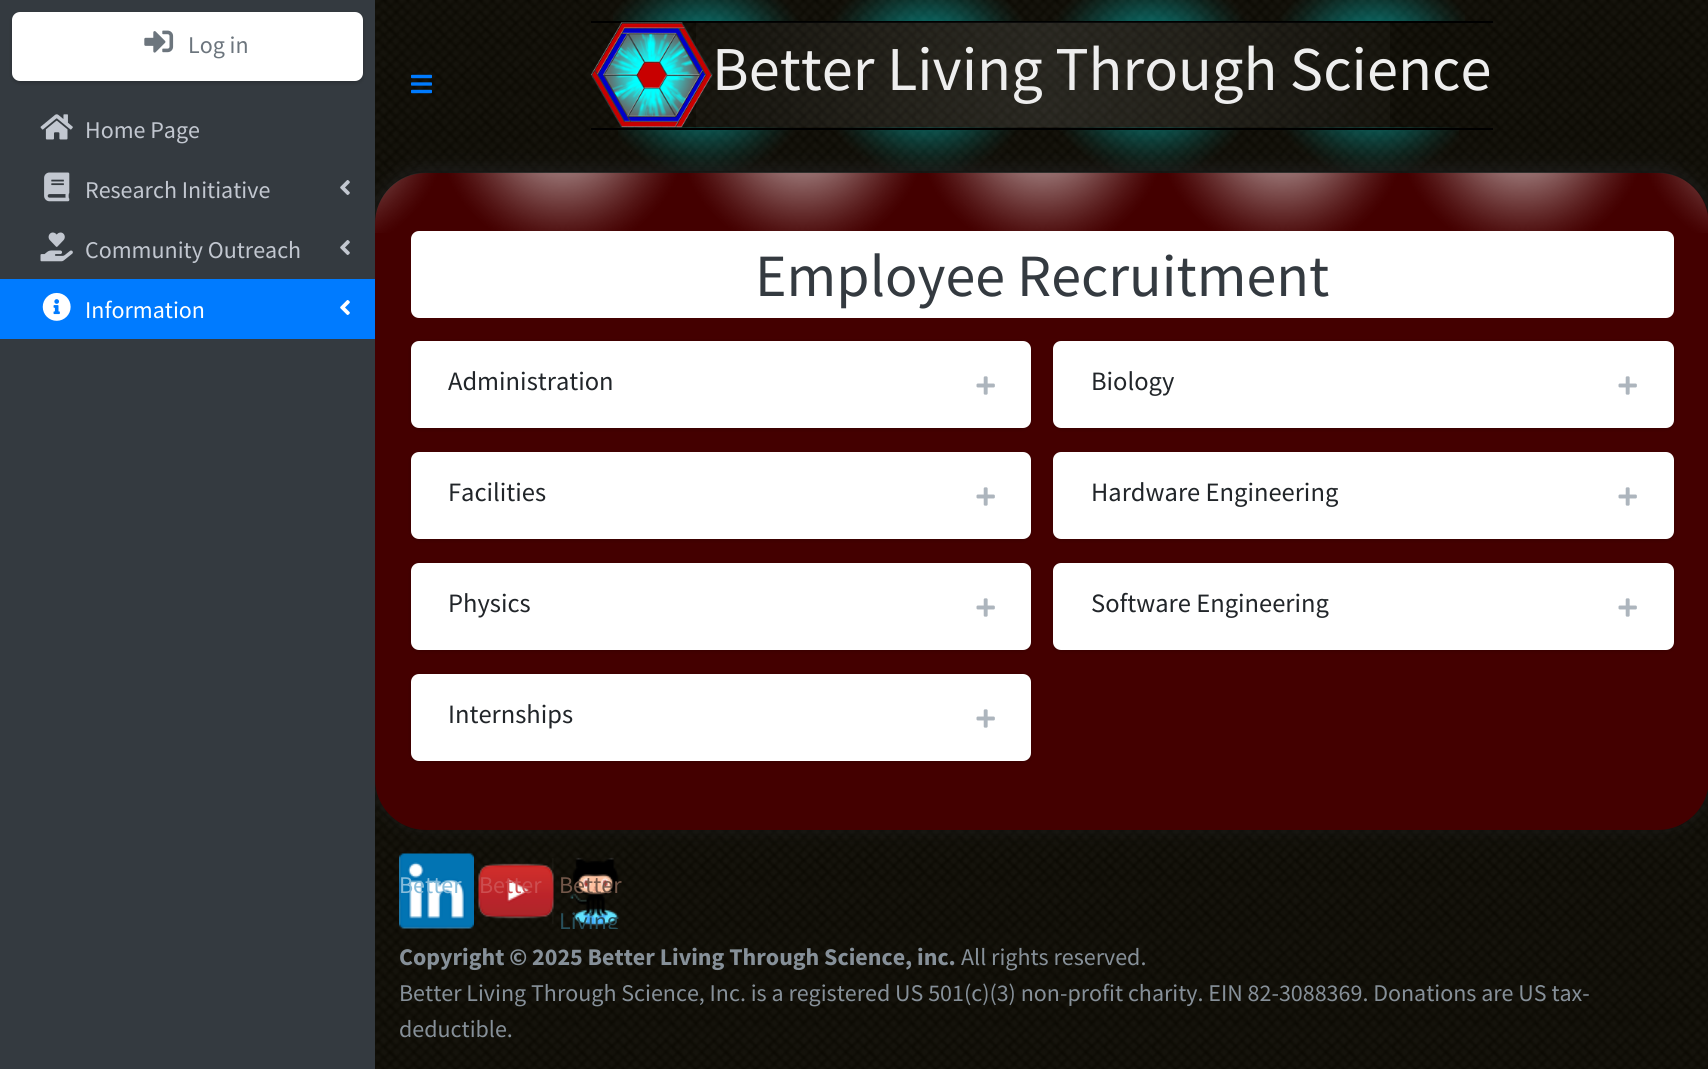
import math
import cairo


def use_color(cr, r, g, b):
  cr.set_source_rgb(r / 255, g / 255, b / 255)

def text(cr, x, y, s, family, size, color, bold=False, italic=False):
  cr.select_font_face(family, cairo.FONT_SLANT_ITALIC if italic else cairo.FONT_SLANT_NORMAL, cairo.FONT_WEIGHT_BOLD if bold else cairo.FONT_WEIGHT_NORMAL)
  cr.set_font_size(size)
  use_color(cr, *color)
  cr.move_to(x, y)
  cr.show_text(s)

def box(cr, x, y, w, h, *color):
  use_color(cr, *color)
  cr.rectangle(x, y, w, h)
  cr.fill()

def round_rect(cr, x, y, w, h, r):
  cr.new_sub_path()
  for i, (u, v) in enumerate([(x + w - r, y + h - r), (x + r, y + h - r), (x + r, y + r), (x + w - r, y + r)]):
    cr.arc(u, v, r, i * math.pi / 2, (i + 1) * math.pi / 2)
  cr.close_path()

def shadow(cr, x, y, w, h, r, blur, alpha):
  cr.push_group_with_content(cairo.CONTENT_ALPHA)
  cr.set_operator(cairo.OPERATOR_SOURCE)
  for i in range(15, -16, -2):
    e = blur * i / 6
    if min(w, h) + 2 * e > 0:
      cr.set_source_rgba(0, 0, 0, alpha * math.erfc((i - 1) / 8.5) / 2)
      round_rect(cr, x - e, y - e, w + 2 * e, h + 2 * e, max(0, min(r + e + blur * .6, min(w, h) / 2 + e)))
      cr.fill()
  cr.mask(cr.pop_group())

def picture(cr, path, x, y, w, h):
  cr.save()
  cr.set_source_surface(cairo.ImageSurface.create_from_png(path), x, y)
  cr.rectangle(x, y, w, h)
  cr.fill()
  cr.restore()

def draw(cr):
  use_color(cr, 0, 0, 0)
  cr.paint()
  picture(cr, "img_01.png", 375, 0, 1333, 1069)
  use_color(cr, 31, 31, 31)
  shadow(cr, 372, 167, 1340, 663, 54, 7.5, 0.75)
  round_rect(cr, 375, 172, 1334, 658, 52)
  cr.set_source_rgba(0, 0, 0, 0.1)
  cr.stroke()
  box(cr, 0, 0, 375, 1069, 52, 58, 64)
  use_color(cr, 0, 0, 0)
  shadow(cr, 12, 14, 351, 69, 8, 2, 0.2)
  use_color(cr, 255, 255, 255)
  round_rect(cr, 12, 12, 351, 69, 8)
  cr.fill()
  picture(cr, "img_02.png", 144, 30, 30, 23)
  picture(cr, "img_03.png", 40, 114, 33, 26)
  picture(cr, "img_04.png", 44, 172, 26, 30)
  picture(cr, "img_05.png", 340, 180, 10, 15)
  picture(cr, "img_06.png", 40, 232, 33, 30)
  picture(cr, "img_05.png", 340, 240, 10, 15)
  box(cr, 0, 279, 375, 60, 0, 123, 255)
  picture(cr, "img_07.png", 42, 292, 29, 29)
  picture(cr, "img_08.png", 340, 300, 10, 15)
  picture(cr, "img_09.png", 411, 74, 21, 20)
  picture(cr, "img_10.png", 613, 0, 852, 21)
  box(cr, 591, 21, 902, 2, 0, 0, 0)
  picture(cr, "img_11.png", 696, 22, 694, 106)
  picture(cr, "img_13.png", 618, 127, 841, 44)
  picture(cr, "img_12.png", 591, 22, 122, 106)
  box(cr, 591, 128, 902, 2, 0, 0, 0)
  use_color(cr, 68, 0, 0)
  round_rect(cr, 375, 173, 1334, 657, 51)
  cr.fill()
  picture(cr, "img_14.png", 375, 172, 1333, 61)
  use_color(cr, 255, 255, 255)
  round_rect(cr, 411, 231, 1263, 87, 8)
  cr.fill()
  use_color(cr, 0, 0, 0)
  shadow(cr, 411, 342, 620, 87, 8, 2, 0.2)
  use_color(cr, 255, 255, 255)
  round_rect(cr, 411, 341, 620, 87, 8)
  cr.fill()
  picture(cr, "img_15.png", 976, 376, 19, 19)
  use_color(cr, 0, 0, 0)
  shadow(cr, 1053, 342, 621, 87, 8, 2, 0.2)
  use_color(cr, 255, 255, 255)
  round_rect(cr, 1053, 341, 621, 87, 8)
  cr.fill()
  picture(cr, "img_15.png", 1618, 376, 19, 19)
  use_color(cr, 0, 0, 0)
  shadow(cr, 411, 453, 620, 87, 8, 2, 0.2)
  use_color(cr, 255, 255, 255)
  round_rect(cr, 411, 452, 620, 87, 8)
  cr.fill()
  picture(cr, "img_15.png", 976, 487, 19, 19)
  use_color(cr, 0, 0, 0)
  shadow(cr, 1053, 453, 621, 87, 8, 2, 0.2)
  use_color(cr, 255, 255, 255)
  round_rect(cr, 1053, 452, 621, 87, 8)
  cr.fill()
  picture(cr, "img_15.png", 1618, 487, 19, 19)
  use_color(cr, 0, 0, 0)
  shadow(cr, 411, 564, 620, 87, 8, 2, 0.2)
  use_color(cr, 255, 255, 255)
  round_rect(cr, 411, 563, 620, 87, 8)
  cr.fill()
  picture(cr, "img_15.png", 976, 598, 19, 19)
  use_color(cr, 0, 0, 0)
  shadow(cr, 1053, 564, 621, 87, 8, 2, 0.2)
  use_color(cr, 255, 255, 255)
  round_rect(cr, 1053, 563, 621, 87, 8)
  cr.fill()
  picture(cr, "img_15.png", 1618, 598, 19, 19)
  use_color(cr, 0, 0, 0)
  shadow(cr, 411, 675, 620, 87, 8, 2, 0.2)
  use_color(cr, 255, 255, 255)
  round_rect(cr, 411, 674, 620, 87, 8)
  cr.fill()
  picture(cr, "img_15.png", 976, 709, 19, 19)
  picture(cr, "img_16.png", 399, 853, 75, 76)
  picture(cr, "img_17.png", 478, 858, 76, 66)
  picture(cr, "img_18.png", 570, 857, 49, 69)
  text(cr, 188, 53, "Log in", "Source Sans Pro", 24, (108, 117, 125))
  text(cr, 85, 138, "Home Page", "Source Sans Pro", 24, (194, 199, 208))
  text(cr, 85, 198, "Research Initiative", "Source Sans Pro", 24, (194, 199, 208))
  text(cr, 85, 258, "Community Outreach", "Source Sans Pro", 24, (194, 199, 208))
  text(cr, 85, 318, "Information", "Source Sans Pro", 24, (255, 255, 255))
  text(cr, 712, 90, "Better Living Through Science", "Source Sans Pro", 62.4, (238, 238, 238))
  text(cr, 755, 296, "Employee Recruitment", "Source Sans Pro", 60, (52, 58, 64))
  text(cr, 448, 390, "Administration", "Source Sans Pro", 26.5, (33, 37, 41))
  text(cr, 1091, 390, "Biology", "Source Sans Pro", 26.5, (33, 37, 41))
  text(cr, 448, 501, "Facilities", "Source Sans Pro", 26.5, (33, 37, 41))
  text(cr, 1091, 501, "Hardware Engineering", "Source Sans Pro", 26.5, (33, 37, 41))
  text(cr, 448, 612, "Physics", "Source Sans Pro", 26.5, (33, 37, 41))
  text(cr, 1091, 612, "Software Engineering", "Source Sans Pro", 26.5, (33, 37, 41))
  text(cr, 448, 723, "Internships", "Source Sans Pro", 26.5, (33, 37, 41))
  text(cr, 399, 893, "Better", "Source Sans Pro", 24, (136, 189, 219))
  text(cr, 479, 893, "Better", "Source Sans Pro", 24, (205, 78, 80))
  text(cr, 559, 893, "Better", "Source Sans Pro", 24, (115, 87, 73))
  cr.save()
  cr.rectangle(558, 854, 75, 75)
  cr.clip()
  text(cr, 559, 929, "Living", "Source Sans Pro", 24, (40, 80, 92))
  cr.restore()
  text(cr, 399, 965, "Copyright © 2025 Better Living Through Science, inc.", "Source Sans Pro", 24, (134, 144, 153), bold=True)
  text(cr, 961, 965, "All rights reserved.", "Source Sans Pro", 24, (134, 144, 153))
  text(cr, 399, 1001, "Better Living Through Science, Inc. is a registered US 501(c)(3) non-profit charity. EIN 82-3088369. Donations are US tax-", "Source Sans Pro", 24, (134, 144, 153))
  text(cr, 399, 1037, "deductible.", "Source Sans Pro", 24, (134, 144, 153))


surface = cairo.ImageSurface(cairo.FORMAT_RGB24, 1708, 1069)
cr = cairo.Context(surface)
options = cairo.FontOptions()
options.set_hint_metrics(cairo.HINT_METRICS_OFF)
options.set_hint_style(cairo.HINT_STYLE_NONE)
cr.set_font_options(options)
cr.set_miter_limit(4)
draw(cr)
surface.write_to_png("out.png")
